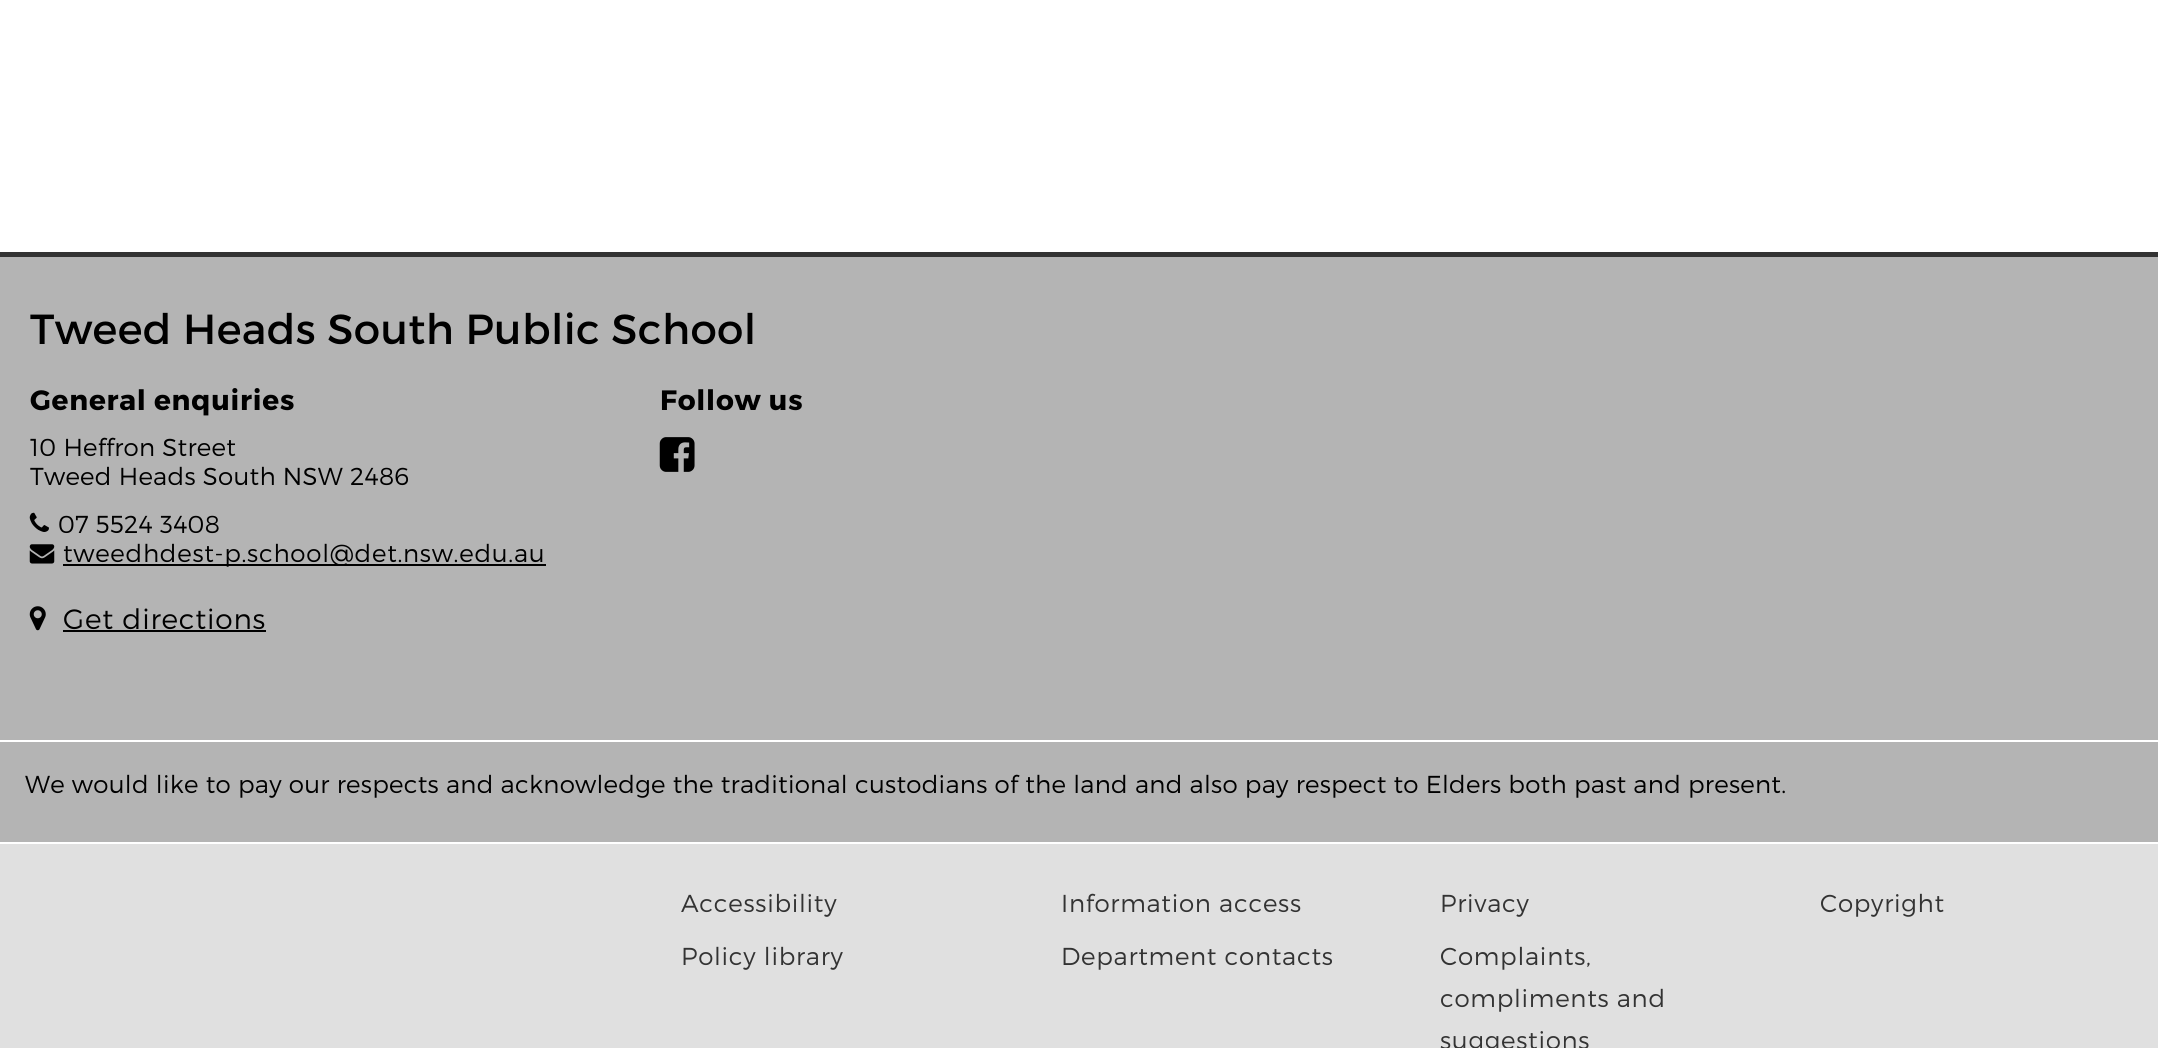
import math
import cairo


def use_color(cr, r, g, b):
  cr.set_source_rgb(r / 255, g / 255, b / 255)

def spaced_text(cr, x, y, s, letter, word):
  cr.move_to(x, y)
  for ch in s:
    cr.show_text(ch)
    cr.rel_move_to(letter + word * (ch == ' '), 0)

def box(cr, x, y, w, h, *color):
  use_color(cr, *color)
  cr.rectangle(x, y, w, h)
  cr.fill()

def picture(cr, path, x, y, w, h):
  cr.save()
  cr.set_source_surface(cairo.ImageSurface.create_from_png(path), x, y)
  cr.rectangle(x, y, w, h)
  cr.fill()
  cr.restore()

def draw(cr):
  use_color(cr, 255, 255, 255)
  cr.paint()
  box(cr, 0, 257, 2158, 483, 180, 180, 180)
  box(cr, 0, 252, 2158, 5, 51, 51, 51)
  picture(cr, "img_01.png", 29, 512, 20, 20)
  picture(cr, "img_02.png", 29, 544, 26, 20)
  box(cr, 63, 564, 483, 2, 0, 0, 0)
  picture(cr, "img_03.png", 29, 606, 17, 25)
  box(cr, 63, 630, 203, 2, 0, 0, 0)
  picture(cr, "img_04.png", 659, 437, 36, 35)
  box(cr, 0, 742, 2158, 100, 180, 180, 180)
  box(cr, 0, 844, 2158, 204, 224, 224, 224)
  cr.select_font_face("Montserrat")
  cr.set_font_size(42)
  use_color(cr, 0, 0, 0)
  spaced_text(cr, 30, 344, "Tweed Heads South Public School", 0.4, 0)
  cr.select_font_face("Montserrat", cairo.FONT_SLANT_NORMAL, cairo.FONT_WEIGHT_BOLD)
  cr.set_font_size(28)
  spaced_text(cr, 30, 410, "General enquiries", 0.8, 0)
  cr.select_font_face("Montserrat Light")
  cr.set_font_size(24.5)
  spaced_text(cr, 30, 456, "10 Heffron Street", 0.28, 0)
  spaced_text(cr, 30, 485, "Tweed Heads South NSW 2486", 0.28, 0)
  spaced_text(cr, 58, 533, "07 5524 3408", 0.28, 0)
  spaced_text(cr, 63, 562, "tweedhdest-p.school@det.nsw.edu.au", 0.75, 0)
  cr.set_font_size(28)
  spaced_text(cr, 63, 629, "Get directions", 0.8, 0)
  cr.select_font_face("Montserrat", cairo.FONT_SLANT_NORMAL, cairo.FONT_WEIGHT_BOLD)
  spaced_text(cr, 660, 410, "Follow us", 0.8, 0)
  cr.select_font_face("Montserrat Light")
  cr.set_font_size(24.5)
  spaced_text(cr, 25, 793, "We would like to pay our respects and acknowledge the traditional custodians of the land and also pay respect to Elders both past and present.", 0.28, 0)
  use_color(cr, 51, 51, 51)
  spaced_text(cr, 681, 912, "Accessibility", 0.75, 0)
  spaced_text(cr, 1061, 912, "Information access", 0.75, 0)
  spaced_text(cr, 1440, 912, "Privacy", 0.75, 0)
  spaced_text(cr, 1820, 912, "Copyright", 0.75, 0)
  spaced_text(cr, 681, 965, "Policy library", 0.75, 0)
  spaced_text(cr, 1061, 965, "Department contacts", 0.75, 0)
  spaced_text(cr, 1440, 965, "Complaints,", 0.75, 0)
  spaced_text(cr, 1440, 1007, "compliments and", 0.75, 0)
  spaced_text(cr, 1440, 1049, "suggestions", 0.75, 0)


surface = cairo.ImageSurface(cairo.FORMAT_RGB24, 2158, 1048)
cr = cairo.Context(surface)
options = cairo.FontOptions()
options.set_hint_metrics(cairo.HINT_METRICS_OFF)
options.set_hint_style(cairo.HINT_STYLE_NONE)
cr.set_font_options(options)
cr.set_miter_limit(4)
draw(cr)
surface.write_to_png("out.png")
